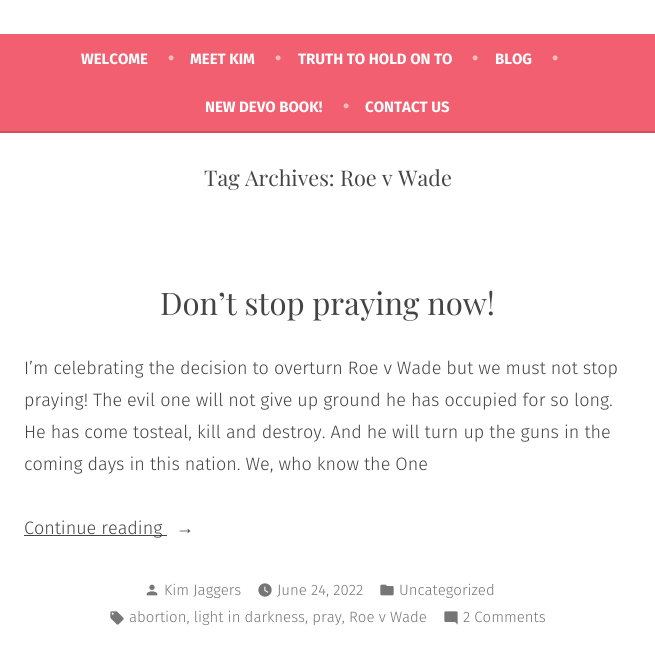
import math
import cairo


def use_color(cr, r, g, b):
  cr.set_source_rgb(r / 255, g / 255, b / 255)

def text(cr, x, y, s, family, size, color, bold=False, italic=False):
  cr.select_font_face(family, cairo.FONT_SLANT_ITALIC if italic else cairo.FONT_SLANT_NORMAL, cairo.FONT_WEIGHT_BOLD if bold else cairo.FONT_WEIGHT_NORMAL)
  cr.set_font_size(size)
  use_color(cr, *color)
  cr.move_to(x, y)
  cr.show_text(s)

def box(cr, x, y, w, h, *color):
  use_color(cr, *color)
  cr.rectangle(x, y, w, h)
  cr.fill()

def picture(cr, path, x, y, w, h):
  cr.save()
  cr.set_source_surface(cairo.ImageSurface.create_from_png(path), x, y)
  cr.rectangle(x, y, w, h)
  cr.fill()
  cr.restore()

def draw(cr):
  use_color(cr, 255, 255, 255)
  cr.paint()
  box(cr, 0, 34, 655, 97, 242, 95, 112)
  box(cr, 0, 131, 655, 2, 206, 81, 95)
  box(cr, 24, 535, 143, 1, 68, 68, 68)
  picture(cr, "img_01.png", 146, 584, 12, 12)
  picture(cr, "img_02.png", 258, 583, 14, 14)
  picture(cr, "img_03.png", 380, 584, 14, 12)
  picture(cr, "img_04.png", 110, 611, 14, 14)
  picture(cr, "img_05.png", 444, 611, 14, 14)
  text(cr, 81, 64, "WELCOME", "Fira Sans", 15, (255, 255, 255), bold=True)
  text(cr, 168, 64, "•", "Fira Sans", 18, (250, 188, 195), bold=True)
  text(cr, 190, 64, "MEET KIM", "Fira Sans", 15, (255, 255, 255), bold=True)
  text(cr, 275, 64, "•", "Fira Sans", 18, (250, 188, 195), bold=True)
  text(cr, 298, 64, "TRUTH TO HOLD ON TO", "Fira Sans", 15, (255, 255, 255), bold=True)
  text(cr, 472, 64, "•", "Fira Sans", 18, (250, 188, 195), bold=True)
  text(cr, 495, 64, "BLOG", "Fira Sans", 15, (255, 255, 255), bold=True)
  text(cr, 552, 64, "•", "Fira Sans", 18, (250, 188, 195), bold=True)
  text(cr, 205, 112, "NEW DEVO BOOK!", "Fira Sans", 15, (255, 255, 255), bold=True)
  text(cr, 343, 112, "•", "Fira Sans", 18, (250, 188, 195), bold=True)
  text(cr, 365, 112, "CONTACT US", "Fira Sans", 15, (255, 255, 255), bold=True)
  text(cr, 204, 186, "Tag Archives: Roe v Wade", "Playfair Display", 21.6, (68, 68, 68))
  text(cr, 160, 315, "Don’t stop praying now!", "Playfair Display", 31.1, (68, 68, 68))
  text(cr, 24, 374, "I’m celebrating the decision to overturn Roe v Wade but we must not stop", "Fira Sans Light", 18, (68, 68, 68))
  text(cr, 24, 406, "praying! The evil one will not give up ground he has occupied for so long.", "Fira Sans Light", 18, (68, 68, 68))
  text(cr, 24, 438, "He has come tosteal, kill and destroy. And he will turn up the guns in the", "Fira Sans Light", 18, (68, 68, 68))
  text(cr, 24, 470, "coming days in this nation. We, who know the One", "Fira Sans Light", 18, (68, 68, 68))
  text(cr, 24, 534, "Continue reading", "Fira Sans Light", 18, (68, 68, 68))
  text(cr, 176, 534, "→", "Liberation Serif", 18, (68, 68, 68))
  text(cr, 164, 595, "Kim Jaggers", "Fira Sans Light", 15, (118, 118, 118))
  text(cr, 277, 595, "June 24, 2022", "Fira Sans Light", 15, (118, 118, 118))
  text(cr, 399, 595, "Uncategorized", "Fira Sans Light", 15, (118, 118, 118))
  text(cr, 129, 622, "abortion, light in darkness, pray, Roe v Wade", "Fira Sans Light", 15, (118, 118, 118))
  text(cr, 463, 622, "2 Comments", "Fira Sans Light", 15, (118, 118, 118))


surface = cairo.ImageSurface(cairo.FORMAT_RGB24, 655, 645)
cr = cairo.Context(surface)
options = cairo.FontOptions()
options.set_hint_metrics(cairo.HINT_METRICS_OFF)
options.set_hint_style(cairo.HINT_STYLE_NONE)
cr.set_font_options(options)
cr.set_miter_limit(4)
draw(cr)
surface.write_to_png("out.png")
